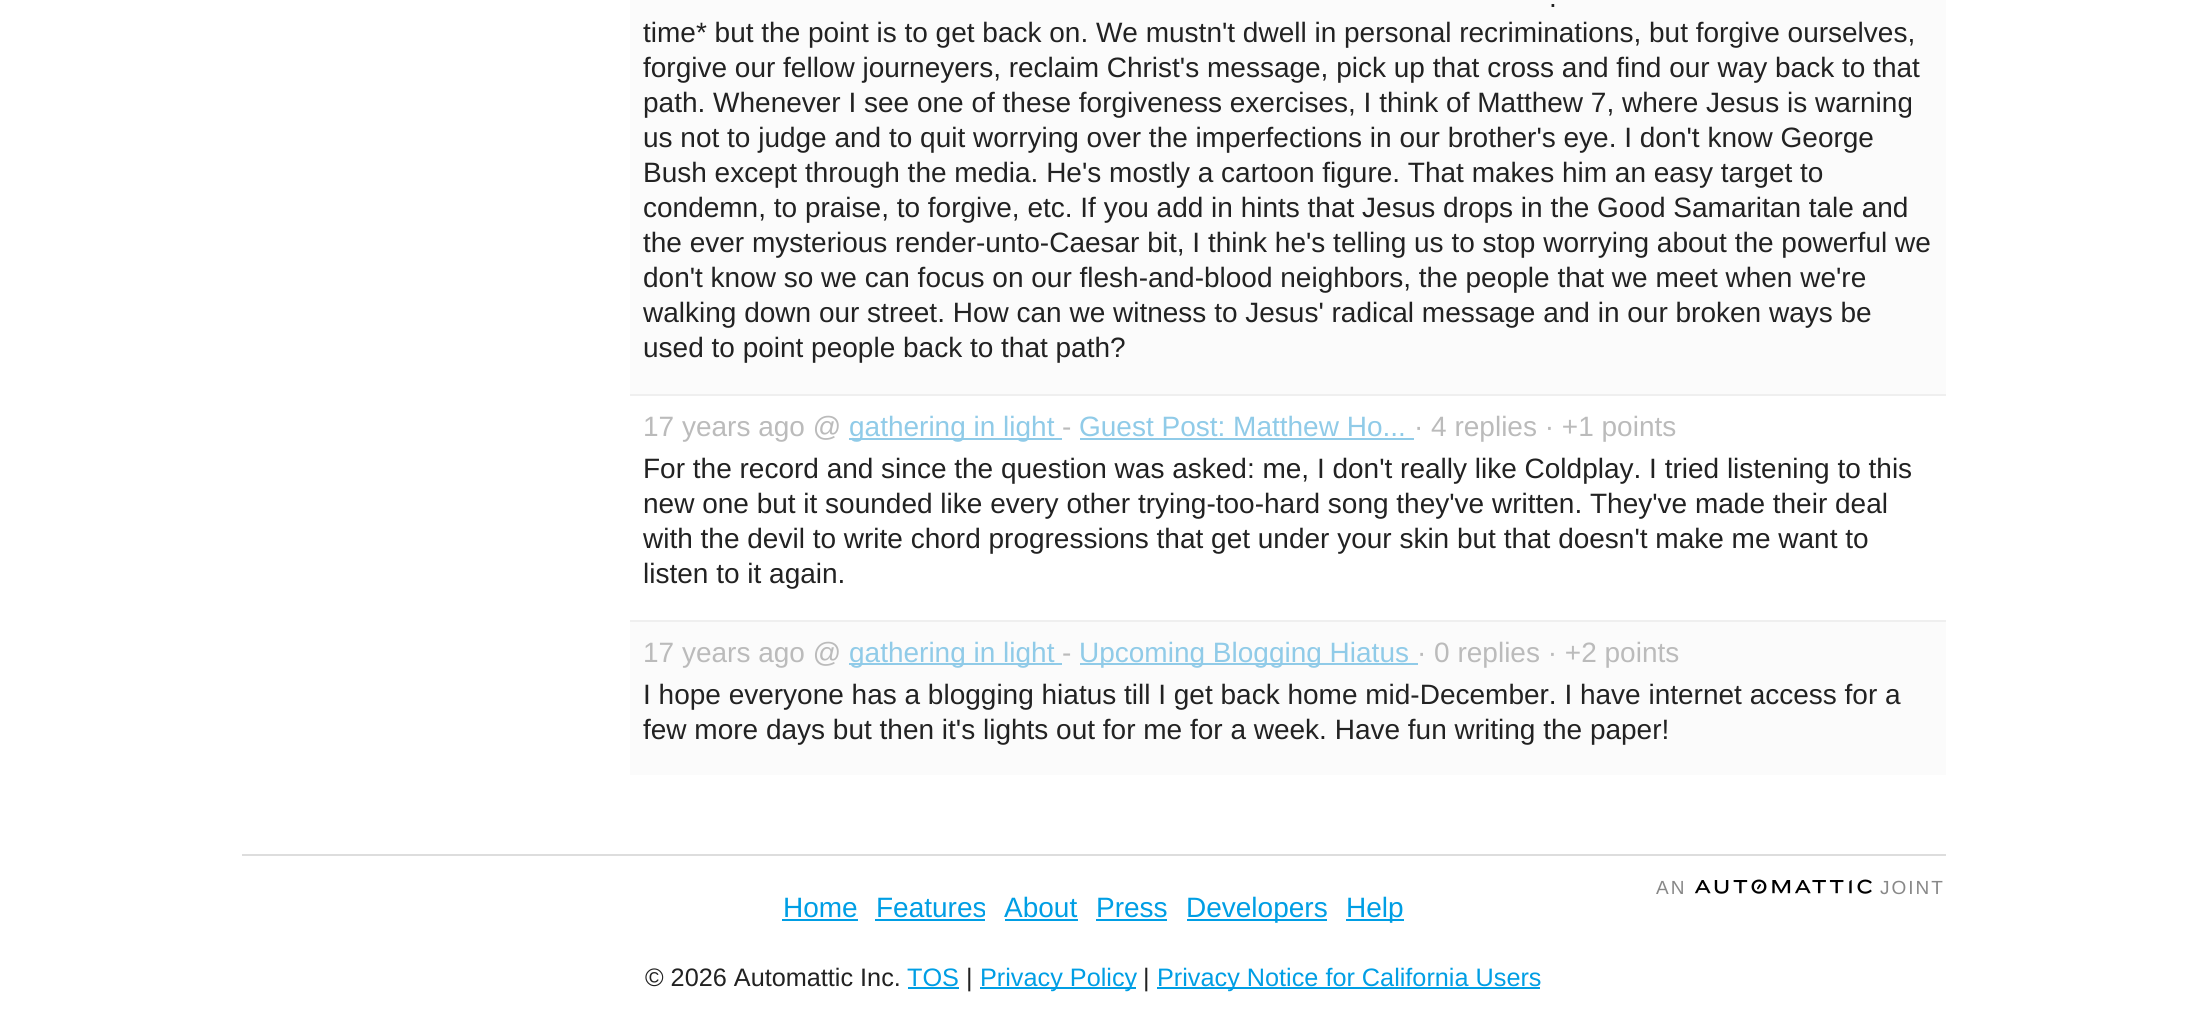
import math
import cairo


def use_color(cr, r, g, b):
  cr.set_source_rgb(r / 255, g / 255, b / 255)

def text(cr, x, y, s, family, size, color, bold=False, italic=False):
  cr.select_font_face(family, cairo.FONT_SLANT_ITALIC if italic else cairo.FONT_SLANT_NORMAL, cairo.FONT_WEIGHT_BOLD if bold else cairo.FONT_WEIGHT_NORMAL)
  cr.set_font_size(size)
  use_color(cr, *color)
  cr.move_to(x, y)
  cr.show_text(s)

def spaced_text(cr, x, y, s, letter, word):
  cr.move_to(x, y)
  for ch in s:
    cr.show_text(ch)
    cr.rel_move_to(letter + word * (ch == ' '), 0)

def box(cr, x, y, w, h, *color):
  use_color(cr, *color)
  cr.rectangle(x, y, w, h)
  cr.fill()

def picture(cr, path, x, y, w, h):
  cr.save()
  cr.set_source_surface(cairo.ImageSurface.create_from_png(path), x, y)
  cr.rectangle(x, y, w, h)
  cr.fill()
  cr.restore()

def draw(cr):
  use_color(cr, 255, 255, 255)
  cr.paint()
  box(cr, 630, 0, 1316, 394, 251, 251, 251)
  box(cr, 630, 394, 1316, 2, 239, 239, 239)
  box(cr, 849, 438, 213, 2, 144, 203, 232)
  box(cr, 1080, 438, 334, 2, 144, 203, 232)
  box(cr, 630, 622, 1316, 153, 251, 251, 251)
  box(cr, 630, 620, 1316, 2, 239, 239, 239)
  box(cr, 849, 663, 213, 2, 144, 203, 232)
  box(cr, 1080, 663, 338, 2, 144, 203, 232)
  box(cr, 242, 854, 1704, 2, 221, 221, 221)
  picture(cr, "img_01.png", 1694, 879, 178, 15)
  box(cr, 782, 919, 76, 2, 0, 158, 228)
  box(cr, 875, 919, 110, 2, 0, 158, 228)
  box(cr, 1005, 919, 73, 2, 0, 158, 228)
  box(cr, 1096, 919, 71, 2, 0, 158, 228)
  box(cr, 1187, 919, 140, 2, 0, 158, 228)
  box(cr, 1346, 919, 58, 2, 0, 158, 228)
  box(cr, 908, 987, 51, 2, 0, 158, 228)
  box(cr, 980, 987, 156, 2, 0, 158, 228)
  box(cr, 1157, 987, 383, 2, 0, 158, 228)
  text(cr, 1549, 7, ".", "Liberation Sans", 28, (34, 34, 34))
  text(cr, 643, 42, "time* but the point is to get back on. We mustn't dwell in personal recriminations, but forgive ourselves,", "Liberation Sans", 28, (34, 34, 34))
  text(cr, 643, 77, "forgive our fellow journeyers, reclaim Christ's message, pick up that cross and find our way back to that", "Liberation Sans", 28, (34, 34, 34))
  text(cr, 643, 112, "path. Whenever I see one of these forgiveness exercises, I think of Matthew 7, where Jesus is warning", "Liberation Sans", 28, (34, 34, 34))
  text(cr, 643, 147, "us not to judge and to quit worrying over the imperfections in our brother's eye. I don't know George", "Liberation Sans", 28, (34, 34, 34))
  text(cr, 643, 182, "Bush except through the media. He's mostly a cartoon figure. That makes him an easy target to", "Liberation Sans", 28, (34, 34, 34))
  text(cr, 643, 217, "condemn, to praise, to forgive, etc. If you add in hints that Jesus drops in the Good Samaritan tale and", "Liberation Sans", 28, (34, 34, 34))
  text(cr, 643, 252, "the ever mysterious render-unto-Caesar bit, I think he's telling us to stop worrying about the powerful we", "Liberation Sans", 28, (34, 34, 34))
  text(cr, 643, 287, "don't know so we can focus on our flesh-and-blood neighbors, the people that we meet when we're", "Liberation Sans", 28, (34, 34, 34))
  text(cr, 643, 322, "walking down our street. How can we witness to Jesus' radical message and in our broken ways be", "Liberation Sans", 28, (34, 34, 34))
  text(cr, 643, 357, "used to point people back to that path?", "Liberation Sans", 28, (34, 34, 34))
  text(cr, 643, 436, "17 years ago @", "Liberation Sans", 28, (187, 187, 187))
  text(cr, 849, 436, "gathering in light", "Liberation Sans", 28, (144, 203, 232))
  text(cr, 1062, 436, "-", "Liberation Sans", 28, (187, 187, 187))
  text(cr, 1079, 436, "Guest Post: Matthew Ho...", "Liberation Sans", 28, (144, 203, 232))
  text(cr, 1414, 436, "· 4 replies · +1 points", "Liberation Sans", 28, (187, 187, 187))
  text(cr, 643, 478, "For the record and since the question was asked: me, I don't really like Coldplay. I tried listening to this", "Liberation Sans", 28, (34, 34, 34))
  text(cr, 643, 513, "new one but it sounded like every other trying-too-hard song they've written. They've made their deal", "Liberation Sans", 28, (34, 34, 34))
  text(cr, 643, 548, "with the devil to write chord progressions that get under your skin but that doesn't make me want to", "Liberation Sans", 28, (34, 34, 34))
  text(cr, 643, 583, "listen to it again.", "Liberation Sans", 28, (34, 34, 34))
  text(cr, 643, 662, "17 years ago @", "Liberation Sans", 28, (187, 187, 187))
  text(cr, 849, 662, "gathering in light", "Liberation Sans", 28, (144, 203, 232))
  text(cr, 1062, 662, "-", "Liberation Sans", 28, (187, 187, 187))
  text(cr, 1079, 662, "Upcoming Blogging Hiatus", "Liberation Sans", 28, (144, 203, 232))
  text(cr, 1417, 662, "· 0 replies · +2 points", "Liberation Sans", 28, (187, 187, 187))
  text(cr, 643, 704, "I hope everyone has a blogging hiatus till I get back home mid-December. I have internet access for a", "Liberation Sans", 28, (34, 34, 34))
  text(cr, 643, 739, "few more days but then it's lights out for me for a week. Have fun writing the paper!", "Liberation Sans", 28, (34, 34, 34))
  cr.set_font_size(19)
  use_color(cr, 136, 136, 136)
  spaced_text(cr, 1656, 894, "AN", 2, 0)
  spaced_text(cr, 1880, 894, "JOINT", 2, 0)
  text(cr, 783, 917, "Home", "Liberation Sans", 28, (0, 158, 228))
  text(cr, 876, 917, "Features", "Liberation Sans", 28, (0, 158, 228))
  text(cr, 1004, 917, "About", "Liberation Sans", 28, (0, 158, 228))
  text(cr, 1096, 917, "Press", "Liberation Sans", 28, (0, 158, 228))
  text(cr, 1186, 917, "Developers", "Liberation Sans", 28, (0, 158, 228))
  text(cr, 1346, 917, "Help", "Liberation Sans", 28, (0, 158, 228))
  text(cr, 645, 986, "© 2026 Automattic Inc.", "Liberation Sans", 25.25, (34, 34, 34))
  text(cr, 907, 986, "TOS", "Liberation Sans", 25.25, (0, 158, 228))
  text(cr, 966, 986, "|", "Liberation Sans", 25.25, (34, 34, 34))
  text(cr, 980, 986, "Privacy Policy", "Liberation Sans", 25.25, (0, 158, 228))
  text(cr, 1143, 986, "|", "Liberation Sans", 25.25, (34, 34, 34))
  text(cr, 1157, 986, "Privacy Notice for California Users", "Liberation Sans", 25.25, (0, 158, 228))


surface = cairo.ImageSurface(cairo.FORMAT_RGB24, 2185, 1029)
cr = cairo.Context(surface)
options = cairo.FontOptions()
options.set_hint_metrics(cairo.HINT_METRICS_OFF)
options.set_hint_style(cairo.HINT_STYLE_NONE)
cr.set_font_options(options)
cr.set_miter_limit(4)
draw(cr)
surface.write_to_png("out.png")
